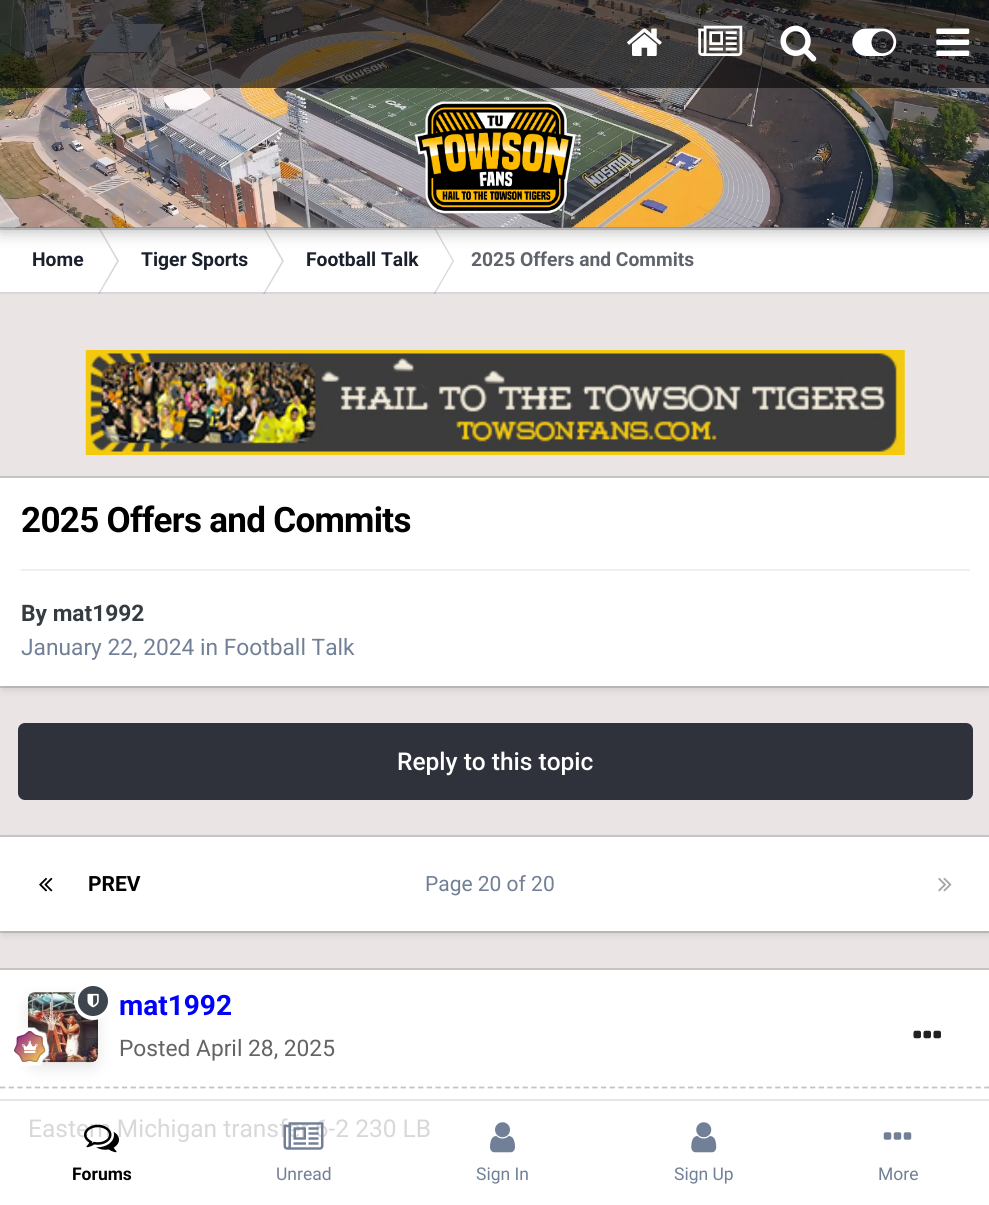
import math
import cairo


def use_color(cr, r, g, b):
  cr.set_source_rgb(r / 255, g / 255, b / 255)

def text(cr, x, y, s, family, size, color, bold=False, italic=False):
  cr.select_font_face(family, cairo.FONT_SLANT_ITALIC if italic else cairo.FONT_SLANT_NORMAL, cairo.FONT_WEIGHT_BOLD if bold else cairo.FONT_WEIGHT_NORMAL)
  cr.set_font_size(size)
  use_color(cr, *color)
  cr.move_to(x, y)
  cr.show_text(s)

def spaced_text(cr, x, y, s, letter, word):
  cr.move_to(x, y)
  for ch in s:
    cr.show_text(ch)
    cr.rel_move_to(letter + word * (ch == ' '), 0)

def box(cr, x, y, w, h, *color):
  use_color(cr, *color)
  cr.rectangle(x, y, w, h)
  cr.fill()

def round_rect(cr, x, y, w, h, r):
  cr.new_sub_path()
  for i, (u, v) in enumerate([(x + w - r, y + h - r), (x + r, y + h - r), (x + r, y + r), (x + w - r, y + r)]):
    cr.arc(u, v, r, i * math.pi / 2, (i + 1) * math.pi / 2)
  cr.close_path()

def shadow(cr, x, y, w, h, r, blur, alpha):
  cr.push_group_with_content(cairo.CONTENT_ALPHA)
  cr.set_operator(cairo.OPERATOR_SOURCE)
  for i in range(15, -16, -2):
    e = blur * i / 6
    if min(w, h) + 2 * e > 0:
      cr.set_source_rgba(0, 0, 0, alpha * math.erfc((i - 1) / 8.5) / 2)
      round_rect(cr, x - e, y - e, w + 2 * e, h + 2 * e, max(0, min(r + e + blur * .6, min(w, h) / 2 + e)))
      cr.fill()
  cr.mask(cr.pop_group())

def picture(cr, path, x, y, w, h):
  cr.save()
  cr.set_source_surface(cairo.ImageSurface.create_from_png(path), x, y)
  cr.rectangle(x, y, w, h)
  cr.fill()
  cr.restore()

def draw(cr):
  use_color(cr, 234, 229, 228)
  cr.paint()
  box(cr, 0, 228, 989, 66, 255, 255, 255)
  use_color(cr, 215, 216, 217)
  cr.new_path()
  cr.move_to(98, 227.5)
  cr.line_to(99.5, 227.5)
  cr.line_to(119, 261)
  cr.line_to(117, 261)
  cr.close_path()
  cr.fill()
  cr.new_path()
  cr.move_to(263, 227.5)
  cr.line_to(264.5, 227.5)
  cr.line_to(284, 261)
  cr.line_to(282, 261)
  cr.close_path()
  cr.fill()
  cr.new_path()
  cr.move_to(433.5, 227.5)
  cr.line_to(435, 227.5)
  cr.line_to(454, 261)
  cr.line_to(452.5, 261)
  cr.close_path()
  cr.fill()
  cr.set_source_rgba(0.208, 0.235, 0.255, 0.2)
  cr.rectangle(0, 228, 989, 2)
  cr.fill()
  use_color(cr, 0, 0, 0)
  shadow(cr, 0, 2, 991, 227, 0, 9, 0.35)
  box(cr, 0, 227, 989, 1, 139, 110, 106)
  picture(cr, "img_01.png", 0, 0, 989, 228)
  cr.set_source_rgba(0, 0, 0, 0.6)
  cr.rectangle(0, 0, 989, 88)
  cr.fill()
  picture(cr, "img_02.png", 627, 28, 35, 28)
  picture(cr, "img_03.png", 698, 25, 45, 31)
  picture(cr, "img_04.png", 780, 25, 37, 37)
  picture(cr, "img_05.png", 852, 28, 45, 28)
  picture(cr, "img_06.png", 936, 28, 34, 28)
  picture(cr, "img_07.png", 414, 101, 162, 113)
  use_color(cr, 215, 216, 217)
  cr.new_path()
  cr.move_to(98, 294)
  cr.line_to(99.5, 294)
  cr.line_to(119, 261)
  cr.line_to(117, 261)
  cr.close_path()
  cr.fill()
  cr.new_path()
  cr.move_to(263, 294)
  cr.line_to(264.5, 294)
  cr.line_to(284, 261)
  cr.line_to(282, 261)
  cr.close_path()
  cr.fill()
  cr.new_path()
  cr.move_to(433.5, 294)
  cr.line_to(435, 294)
  cr.line_to(454, 261)
  cr.line_to(452.5, 261)
  cr.close_path()
  cr.fill()
  cr.set_source_rgba(0.208, 0.235, 0.255, 0.2)
  cr.rectangle(0, 292, 989, 2)
  cr.fill()
  picture(cr, "img_08.png", 85, 350, 820, 105)
  use_color(cr, 0, 0, 0)
  shadow(cr, 2, 481, 987, 209, 0, 3.5, 0.1)
  box(cr, 0, 478, 989, 208, 255, 255, 255)
  box(cr, 0, 476, 989, 2, 198, 195, 195)
  cr.set_source_rgba(0.208, 0.235, 0.255, 0.2)
  cr.rectangle(0, 686, 989, 2)
  cr.fill()
  box(cr, 21, 569, 949, 2, 239, 239, 240)
  use_color(cr, 47, 50, 58)
  round_rect(cr, 18, 723, 955, 77, 7)
  cr.fill()
  use_color(cr, 0, 0, 0)
  shadow(cr, 2, 840, 987, 95, 0, 3.5, 0.1)
  box(cr, 0, 837, 989, 94, 255, 255, 255)
  box(cr, 0, 835, 989, 2, 198, 195, 195)
  cr.set_source_rgba(0.208, 0.235, 0.255, 0.2)
  cr.rectangle(0, 931, 989, 2)
  cr.fill()
  picture(cr, "img_09.png", 39, 877, 14, 15)
  picture(cr, "img_10.png", 938, 877, 14, 15)
  box(cr, 0, 970, 989, 129, 255, 255, 255)
  box(cr, 0, 1101, 989, 104, 255, 255, 255)
  box(cr, 0, 968, 989, 2, 198, 195, 195)
  cr.new_path()
  cr.move_to(0, 1087.5)
  cr.line_to(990.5, 1087.5)
  use_color(cr, 194, 197, 198)
  cr.set_line_width(1.8)
  cr.set_dash([5.25, 3.46])
  cr.stroke()
  picture(cr, "img_11.png", 28, 992, 70, 71)
  cr.save()
  cr.set_fill_rule(cairo.FILL_RULE_EVEN_ODD)
  cr.new_path()
  cr.move_to(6, 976)
  cr.line_to(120, 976)
  cr.line_to(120, 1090)
  cr.line_to(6, 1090)
  cr.close_path()
  cr.move_to(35, 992)
  cr.line_to(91, 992)
  cr.curve_to(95, 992, 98, 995, 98, 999)
  cr.line_to(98, 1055)
  cr.curve_to(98, 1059, 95, 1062, 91, 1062)
  cr.line_to(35, 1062)
  cr.curve_to(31, 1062, 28, 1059, 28, 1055)
  cr.line_to(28, 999)
  cr.curve_to(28, 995, 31, 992, 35, 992)
  cr.close_path()
  cr.clip()
  use_color(cr, 0, 0, 0)
  shadow(cr, 28, 998, 70, 70, 7, 7, 0.1)
  cr.restore()
  round_rect(cr, 29, 993, 68, 68, 6)
  cr.set_source_rgba(0.133, 0.133, 0.133, 0.3)
  cr.set_line_width(2)
  cr.set_dash([])
  cr.stroke()
  use_color(cr, 61, 69, 78)
  cr.arc(93, 1001, 17, 0, 2 * math.pi)
  cr.fill_preserve()
  use_color(cr, 255, 255, 255)
  cr.set_line_width(4)
  cr.stroke()
  picture(cr, "img_12.png", 87, 993, 12, 15)
  picture(cr, "img_13.png", 14, 1027, 36, 39)
  picture(cr, "img_14.png", 913, 1030, 28, 9)
  use_color(cr, 230, 230, 230)
  cr.new_path()
  cr.move_to(0, 1099)
  cr.line_to(0, 1101)
  cr.line_to(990, 1101)
  cr.line_to(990, 1204)
  cr.line_to(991, 1204)
  cr.line_to(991, 1099)
  cr.close_path()
  cr.fill()
  picture(cr, "img_17.png", 490, 1122, 25, 31)
  picture(cr, "img_18.png", 691, 1122, 26, 31)
  picture(cr, "img_19.png", 883, 1132, 29, 8)
  text(cr, 32, 266, "Home", "Roboto", 19.25, (26, 32, 44), bold=True)
  text(cr, 141, 266, "Tiger Sports", "Roboto", 19.25, (26, 32, 44), bold=True)
  text(cr, 306, 266, "Football Talk", "Roboto", 19.25, (26, 32, 44), bold=True)
  text(cr, 471, 266, "2025 Offers and Commits", "Roboto", 19.25, (95, 99, 107), bold=True)
  cr.set_font_size(35)
  use_color(cr, 0, 0, 0)
  spaced_text(cr, 21, 532, "2025 Offers and Commits", -0.7, 0)
  text(cr, 21, 621, "By mat1992", "Roboto", 22.75, (53, 60, 65), bold=True)
  text(cr, 21, 655, "January 22, 2024 in Football Talk", "Roboto", 22.75, (113, 128, 150))
  text(cr, 397, 770, "Reply to this topic", "Roboto Medium", 24.5, (255, 255, 255))
  text(cr, 88, 891, "PREV", "Roboto", 21, (0, 0, 0), bold=True)
  text(cr, 425, 891, "Page 20 of 20", "Roboto", 21, (113, 128, 150))
  text(cr, 119, 1015, "mat1992", "Roboto", 28, (0, 0, 255), bold=True)
  text(cr, 119, 1056, "Posted April 28, 2025", "Roboto", 22.75, (100, 100, 100))
  text(cr, 28, 1137, "Eastern Michigan transfer 6-2 230 LB", "Roboto", 24.5, (215, 216, 217))
  picture(cr, "img_15.png", 84, 1124, 35, 29)
  text(cr, 72, 1180, "Forums", "Roboto", 17.5, (0, 0, 0), bold=True)
  picture(cr, "img_16.png", 283, 1122, 41, 28)
  text(cr, 276, 1180, "Unread", "Roboto", 17.5, (113, 128, 150))
  text(cr, 476, 1180, "Sign In", "Roboto", 17.5, (113, 128, 150))
  text(cr, 674, 1180, "Sign Up", "Roboto", 17.5, (113, 128, 150))
  text(cr, 878, 1180, "More", "Roboto", 17.5, (113, 128, 150))


surface = cairo.ImageSurface(cairo.FORMAT_RGB24, 989, 1205)
cr = cairo.Context(surface)
options = cairo.FontOptions()
options.set_hint_metrics(cairo.HINT_METRICS_OFF)
options.set_hint_style(cairo.HINT_STYLE_NONE)
cr.set_font_options(options)
cr.set_miter_limit(4)
draw(cr)
surface.write_to_png("out.png")
